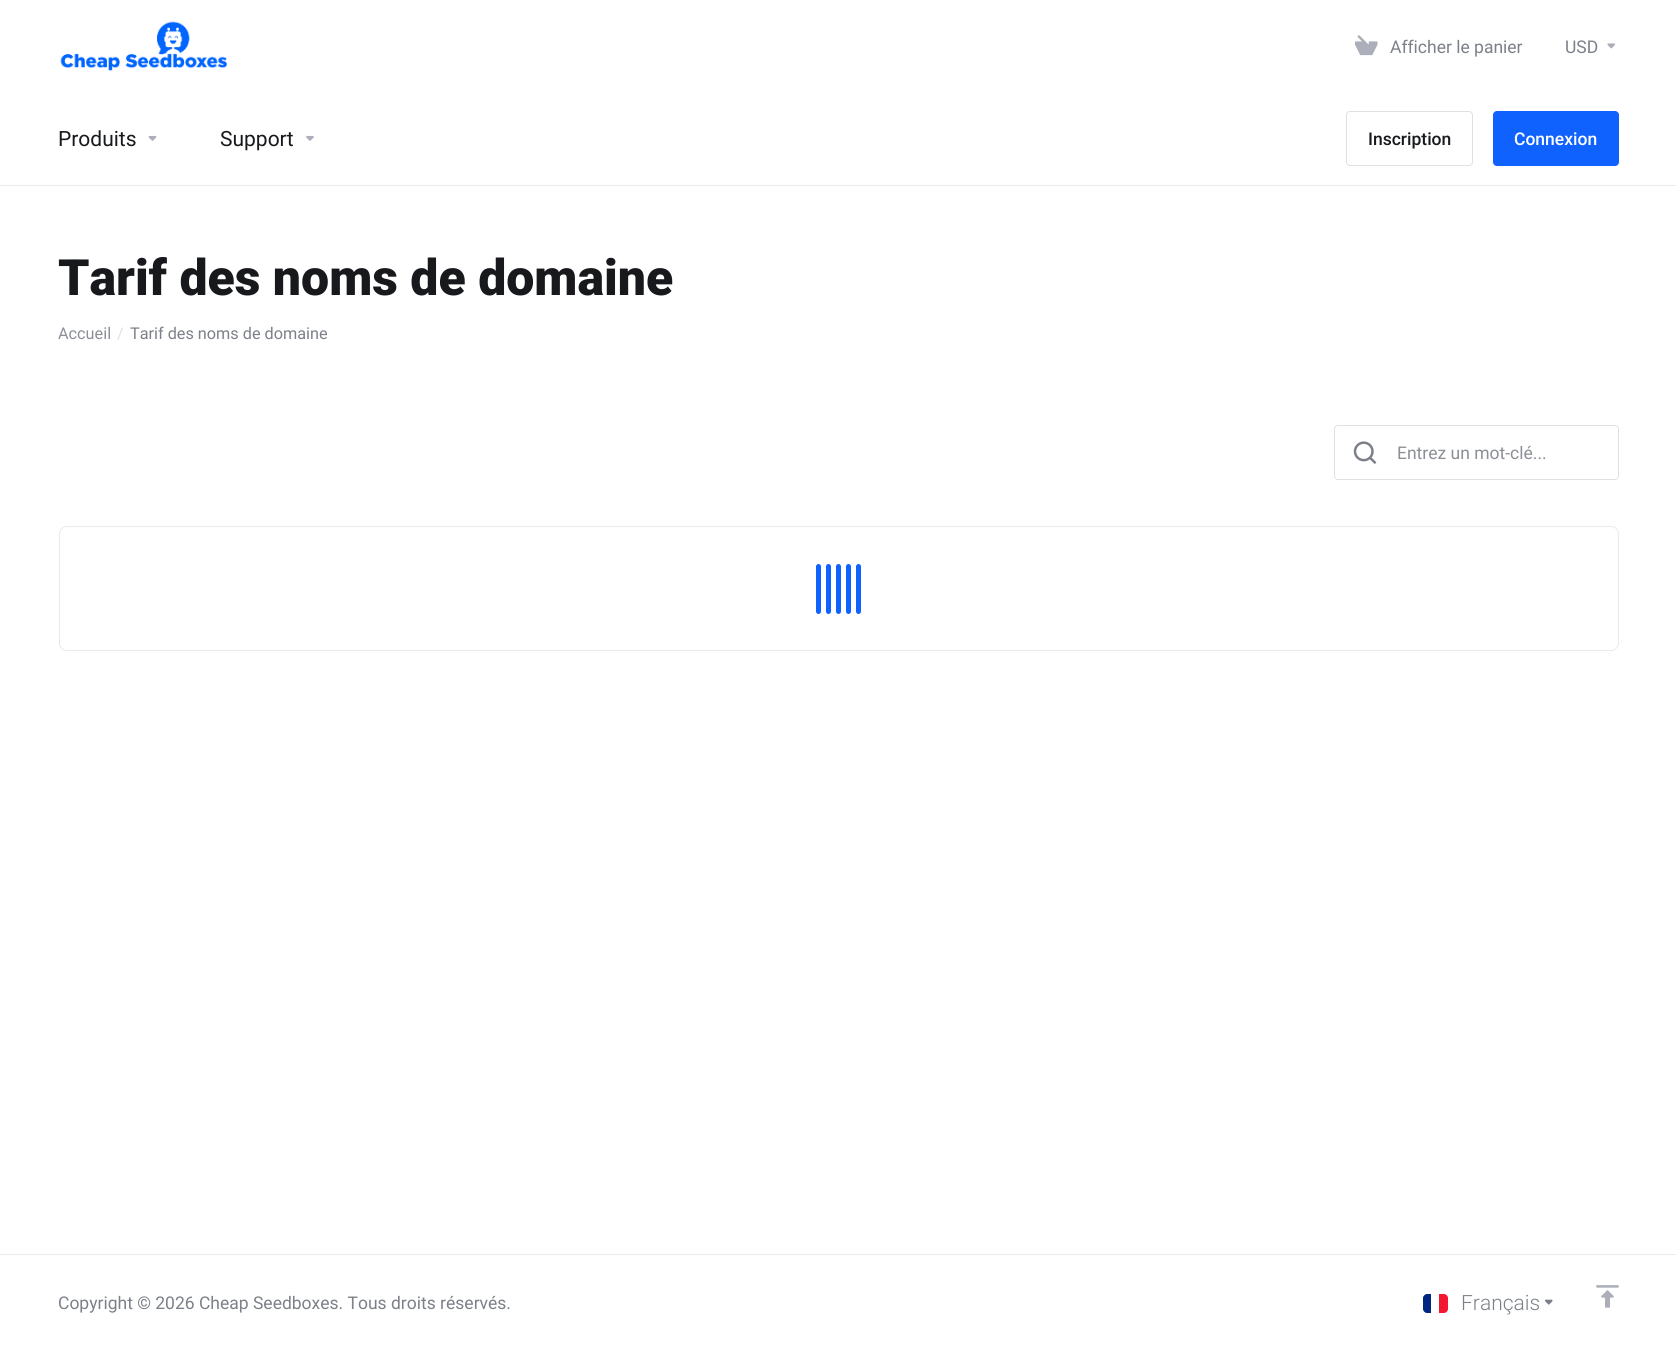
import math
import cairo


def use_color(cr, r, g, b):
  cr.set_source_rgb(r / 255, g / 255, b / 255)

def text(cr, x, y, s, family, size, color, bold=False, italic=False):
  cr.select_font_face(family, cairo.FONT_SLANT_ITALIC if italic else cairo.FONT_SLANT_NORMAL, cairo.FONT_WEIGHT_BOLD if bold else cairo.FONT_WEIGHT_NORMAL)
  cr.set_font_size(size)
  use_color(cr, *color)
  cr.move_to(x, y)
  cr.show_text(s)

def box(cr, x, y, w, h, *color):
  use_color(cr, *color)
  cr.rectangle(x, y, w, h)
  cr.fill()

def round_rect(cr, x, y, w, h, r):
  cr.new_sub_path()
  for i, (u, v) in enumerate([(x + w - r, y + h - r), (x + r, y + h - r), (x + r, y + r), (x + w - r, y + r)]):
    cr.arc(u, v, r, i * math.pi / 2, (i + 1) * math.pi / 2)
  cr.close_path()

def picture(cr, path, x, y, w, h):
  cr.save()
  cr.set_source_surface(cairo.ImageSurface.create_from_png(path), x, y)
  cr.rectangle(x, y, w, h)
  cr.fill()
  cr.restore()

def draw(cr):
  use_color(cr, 255, 255, 255)
  cr.paint()
  box(cr, 0, 185, 1676, 1, 233, 234, 236)
  picture(cr, "img_01.png", 60, 21, 167, 50)
  picture(cr, "img_02.png", 1355, 35, 23, 21)
  picture(cr, "img_03.png", 1607, 43, 8, 6)
  picture(cr, "img_04.png", 148, 135, 9, 6)
  picture(cr, "img_05.png", 306, 135, 8, 6)
  round_rect(cr, 1346.5, 111.5, 126, 54, 3.5)
  use_color(cr, 222, 224, 227)
  cr.set_line_width(1)
  cr.stroke()
  use_color(cr, 16, 98, 254)
  round_rect(cr, 1493.5, 111.5, 125, 54, 3.5)
  cr.fill_preserve()
  cr.stroke()
  round_rect(cr, 1334.5, 425.5, 284, 54, 3.5)
  use_color(cr, 222, 224, 227)
  cr.stroke()
  picture(cr, "img_06.png", 1353, 441, 24, 23)
  round_rect(cr, 59.5, 526.5, 1559, 124, 7.5)
  use_color(cr, 233, 234, 236)
  cr.stroke()
  use_color(cr, 16, 98, 254)
  round_rect(cr, 816, 564, 5, 50, 2.5)
  cr.fill()
  round_rect(cr, 826, 564, 5, 50, 2.5)
  cr.fill()
  round_rect(cr, 836, 564, 5, 50, 2.5)
  cr.fill()
  round_rect(cr, 846, 564, 5, 50, 2.5)
  cr.fill()
  round_rect(cr, 856, 564, 5, 50, 2.5)
  cr.fill()
  box(cr, 0, 1254, 1676, 1, 233, 234, 236)
  use_color(cr, 0, 38, 127)
  cr.new_path()
  cr.move_to(1427, 1294)
  cr.line_to(1431, 1294)
  cr.line_to(1431, 1313)
  cr.line_to(1427, 1313)
  cr.curve_to(1425, 1313, 1423, 1311, 1423, 1309)
  cr.line_to(1423, 1298)
  cr.curve_to(1423, 1296, 1425, 1294, 1427, 1294)
  cr.close_path()
  cr.fill()
  use_color(cr, 243, 24, 48)
  cr.new_path()
  cr.move_to(1439, 1294)
  cr.line_to(1444, 1294)
  cr.curve_to(1446, 1294, 1448, 1296, 1448, 1298)
  cr.line_to(1448, 1309)
  cr.curve_to(1448, 1311, 1446, 1313, 1444, 1313)
  cr.line_to(1439, 1313)
  cr.close_path()
  cr.fill()
  picture(cr, "img_07.png", 1545, 1299, 8, 6)
  picture(cr, "img_08.png", 1596, 1285, 23, 23)
  text(cr, 1390, 53, "Afficher le panier", "Roboto", 17.5, (124, 128, 136))
  text(cr, 1565, 53, "USD", "Roboto", 17.5, (124, 128, 136))
  text(cr, 58, 146, "Produits", "Roboto", 21, (23, 25, 28))
  text(cr, 220, 146, "Support", "Roboto", 21, (23, 25, 28))
  text(cr, 1368, 145, "Inscription", "Roboto Medium", 17.5, (23, 25, 28))
  text(cr, 1514, 145, "Connexion", "Roboto Medium", 17.5, (255, 255, 255))
  text(cr, 58, 295, "Tarif des noms de domaine", "Roboto Black", 50, (23, 25, 28))
  text(cr, 58, 339, "Accueil", "Roboto", 16.25, (140, 143, 150))
  text(cr, 117, 339, "/", "Roboto", 16.25, (222, 224, 227))
  text(cr, 130, 339, "Tarif des noms de domaine", "Roboto", 16.25, (124, 128, 136))
  text(cr, 1397, 459, "Entrez un mot-clé...", "Roboto", 17.5, (140, 143, 150))
  text(cr, 58, 1309, "Copyright © 2026 Cheap Seedboxes. Tous droits réservés.", "Roboto", 17.5, (124, 128, 136))
  text(cr, 1461, 1310, "Français", "Roboto Light", 21, (124, 128, 136))


surface = cairo.ImageSurface(cairo.FORMAT_RGB24, 1676, 1349)
cr = cairo.Context(surface)
options = cairo.FontOptions()
options.set_hint_metrics(cairo.HINT_METRICS_OFF)
options.set_hint_style(cairo.HINT_STYLE_NONE)
cr.set_font_options(options)
cr.set_miter_limit(4)
draw(cr)
surface.write_to_png("out.png")
